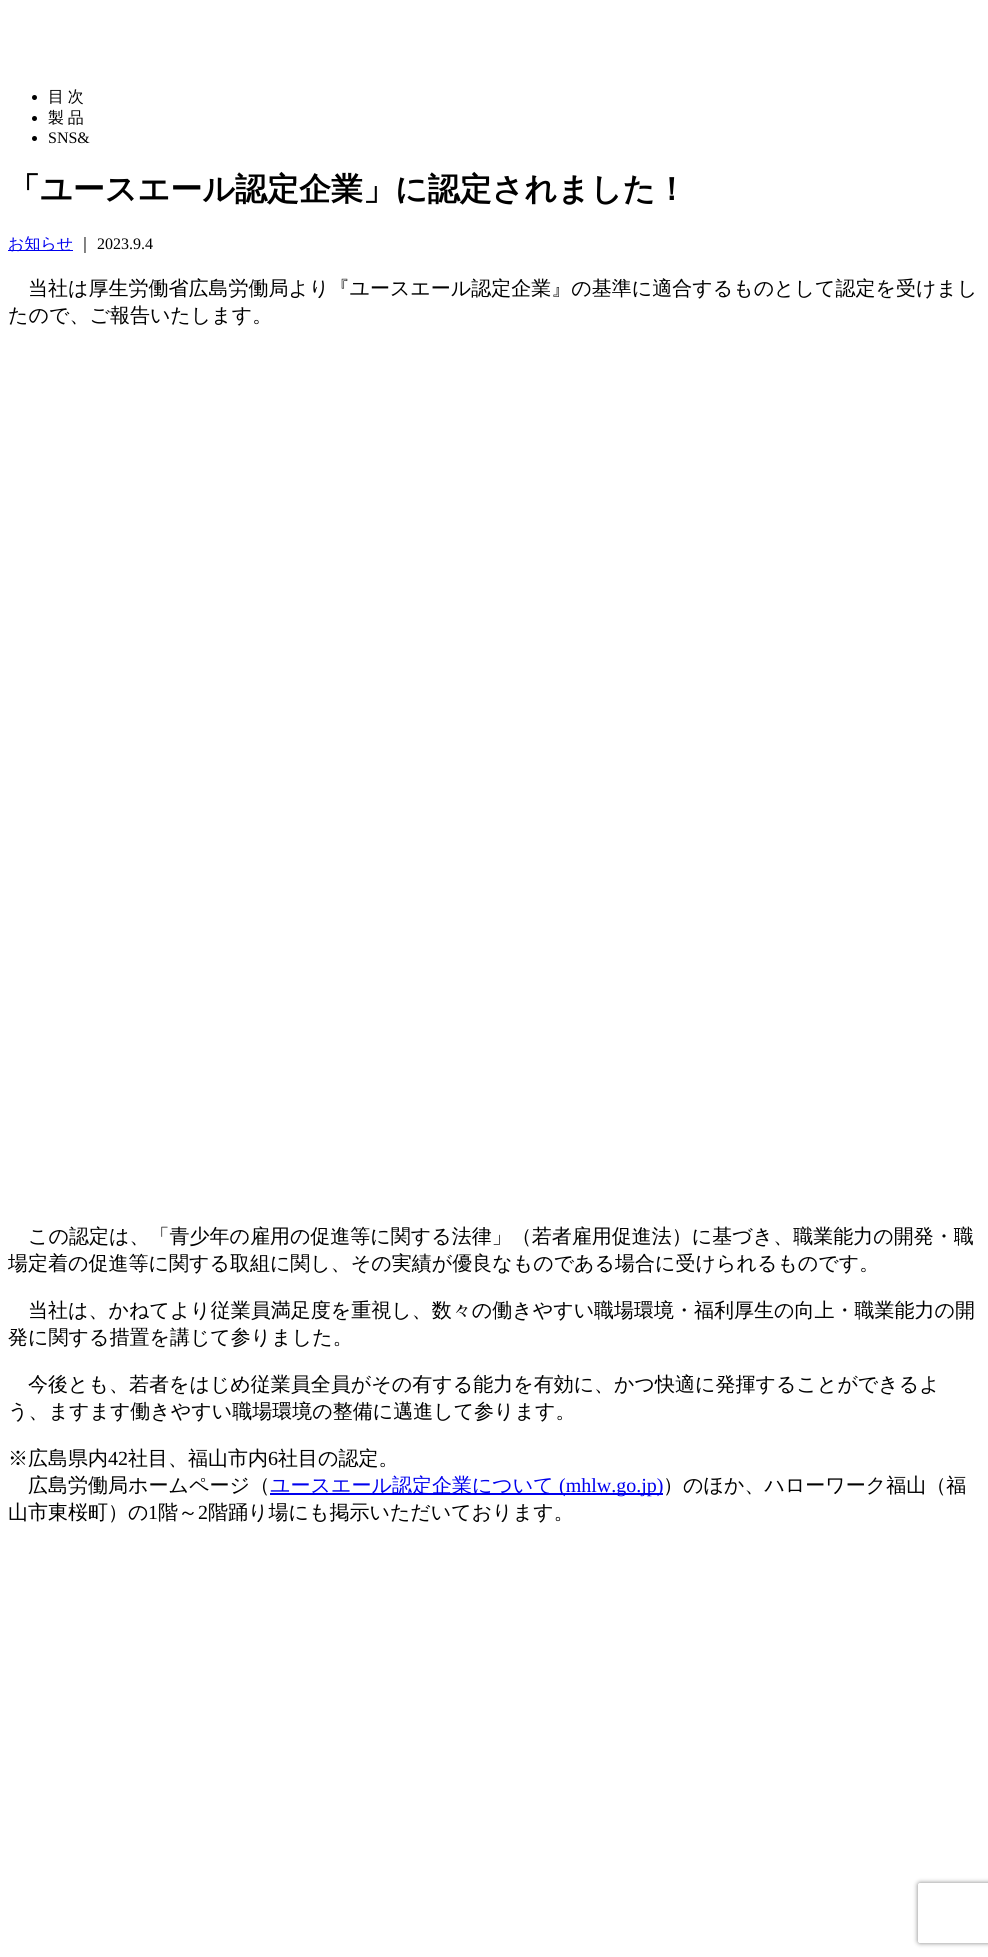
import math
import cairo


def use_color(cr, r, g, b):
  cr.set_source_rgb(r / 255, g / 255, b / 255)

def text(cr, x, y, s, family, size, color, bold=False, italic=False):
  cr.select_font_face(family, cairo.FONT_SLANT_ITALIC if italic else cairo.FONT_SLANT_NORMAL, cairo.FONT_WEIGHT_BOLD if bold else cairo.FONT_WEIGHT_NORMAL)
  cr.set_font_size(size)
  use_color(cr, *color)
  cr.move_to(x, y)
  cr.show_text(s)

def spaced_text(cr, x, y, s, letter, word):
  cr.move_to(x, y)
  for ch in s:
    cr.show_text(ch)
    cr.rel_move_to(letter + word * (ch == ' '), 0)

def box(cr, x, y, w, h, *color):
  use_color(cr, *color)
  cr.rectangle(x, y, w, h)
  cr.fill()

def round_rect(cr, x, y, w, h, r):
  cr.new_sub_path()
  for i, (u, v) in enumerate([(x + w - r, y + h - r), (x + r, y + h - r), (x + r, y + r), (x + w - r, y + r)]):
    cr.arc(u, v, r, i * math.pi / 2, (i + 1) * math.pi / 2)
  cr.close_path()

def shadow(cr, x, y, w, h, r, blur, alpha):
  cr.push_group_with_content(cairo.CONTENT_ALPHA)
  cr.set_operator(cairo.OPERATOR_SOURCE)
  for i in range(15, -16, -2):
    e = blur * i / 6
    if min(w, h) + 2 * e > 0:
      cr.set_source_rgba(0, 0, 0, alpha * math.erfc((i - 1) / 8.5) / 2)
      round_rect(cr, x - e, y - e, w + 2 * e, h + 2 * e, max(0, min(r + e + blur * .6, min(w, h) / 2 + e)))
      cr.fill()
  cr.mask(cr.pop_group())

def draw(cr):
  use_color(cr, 255, 255, 255)
  cr.paint()
  use_color(cr, 0, 0, 0)
  cr.arc(34.5, 97.5, 2.5, 0, 2 * math.pi)
  cr.fill()
  cr.arc(34.5, 118.5, 2.5, 0, 2 * math.pi)
  cr.fill()
  cr.arc(34.5, 138.5, 2.5, 0, 2 * math.pi)
  cr.fill()
  box(cr, 8, 250, 65, 1, 0, 0, 238)
  box(cr, 270, 1493, 393, 2, 0, 0, 238)
  cr.save()
  cr.set_fill_rule(cairo.FILL_RULE_EVEN_ODD)
  cr.new_path()
  cr.move_to(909, 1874)
  cr.line_to(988, 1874)
  cr.line_to(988, 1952)
  cr.line_to(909, 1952)
  cr.close_path()
  cr.move_to(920, 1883)
  cr.line_to(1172, 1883)
  cr.curve_to(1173, 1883, 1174, 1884, 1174, 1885)
  cr.line_to(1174, 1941)
  cr.curve_to(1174, 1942, 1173, 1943, 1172, 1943)
  cr.line_to(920, 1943)
  cr.curve_to(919, 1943, 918, 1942, 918, 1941)
  cr.line_to(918, 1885)
  cr.curve_to(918, 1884, 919, 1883, 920, 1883)
  cr.close_path()
  cr.clip()
  use_color(cr, 128, 128, 128)
  shadow(cr, 918, 1883, 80, 60, 2, 2.5, 1)
  cr.restore()
  cr.select_font_face("WenQuanYi Zen Hei Medium")
  cr.set_font_size(16)
  use_color(cr, 0, 0, 0)
  spaced_text(cr, 48, 102, "目 次", 0, -1)
  spaced_text(cr, 48, 123, "製 品", 0, -1)
  text(cr, 48, 143, "SNS&", "Liberation Serif", 16, (0, 0, 0))
  text(cr, 8, 200, "「ユースエール認定企業」に認定されました！", "WenQuanYi Zen Hei", 32, (0, 0, 0), bold=True)
  text(cr, 8, 249, "お知らせ", "WenQuanYi Zen Hei Medium", 16, (0, 0, 238))
  text(cr, 77, 249, "｜", "WenQuanYi Zen Hei Medium", 16, (0, 0, 0))
  text(cr, 97, 249, "2023.9.4", "Liberation Serif", 16, (0, 0, 0))
  text(cr, 28, 295, "当社は厚生労働省広島労働局より『ユースエール認定企業』の基準に適合するものとして認定を受けまし", "WenQuanYi Zen Hei Medium", 20, (0, 0, 0))
  text(cr, 8, 322, "たので、ご報告いたします。", "WenQuanYi Zen Hei Medium", 20, (0, 0, 0))
  text(cr, 28, 1243, "この認定は、「青少年の雇用の促進等に関する法律」（若者雇用促進法）に基づき、職業能力の開発・職", "WenQuanYi Zen Hei Medium", 20, (0, 0, 0))
  text(cr, 8, 1270, "場定着の促進等に関する取組に関し、その実績が優良なものである場合に受けられるものです。", "WenQuanYi Zen Hei Medium", 20, (0, 0, 0))
  text(cr, 28, 1317, "当社は、かねてより従業員満足度を重視し、数々の働きやすい職場環境・福利厚生の向上・職業能力の開", "WenQuanYi Zen Hei Medium", 20, (0, 0, 0))
  text(cr, 8, 1344, "発に関する措置を講じて参りました。", "WenQuanYi Zen Hei Medium", 20, (0, 0, 0))
  text(cr, 28, 1391, "今後とも、若者をはじめ従業員全員がその有する能力を有効に、かつ快適に発揮することができるよ", "WenQuanYi Zen Hei Medium", 20, (0, 0, 0))
  text(cr, 8, 1418, "う、ますます働きやすい職場環境の整備に邁進して参ります。", "WenQuanYi Zen Hei Medium", 20, (0, 0, 0))
  text(cr, 8, 1465, "※広島県内", "WenQuanYi Zen Hei Medium", 20, (0, 0, 0))
  text(cr, 108, 1465, "42", "Liberation Serif", 20, (0, 0, 0))
  text(cr, 128, 1465, "社目、福山市内", "WenQuanYi Zen Hei Medium", 20, (0, 0, 0))
  text(cr, 268, 1465, "6", "Liberation Serif", 20, (0, 0, 0))
  text(cr, 278, 1465, "社目の認定。", "WenQuanYi Zen Hei Medium", 20, (0, 0, 0))
  text(cr, 28, 1492, "広島労働局ホームページ（", "WenQuanYi Zen Hei Medium", 20, (0, 0, 0))
  text(cr, 270, 1492, "ユースエール認定企業について", "WenQuanYi Zen Hei Medium", 20, (0, 0, 238))
  text(cr, 559, 1492, "(mhlw.go.jp)", "Liberation Serif", 20, (0, 0, 238))
  text(cr, 663, 1492, "）のほか、ハローワーク福山（福", "WenQuanYi Zen Hei Medium", 20, (0, 0, 0))
  text(cr, 8, 1519, "山市東桜町）の", "WenQuanYi Zen Hei Medium", 20, (0, 0, 0))
  text(cr, 148, 1519, "1", "Liberation Serif", 20, (0, 0, 0))
  text(cr, 158, 1519, "階～", "WenQuanYi Zen Hei Medium", 20, (0, 0, 0))
  text(cr, 198, 1519, "2", "Liberation Serif", 20, (0, 0, 0))
  text(cr, 208, 1519, "階踊り場にも掲示いただいております。", "WenQuanYi Zen Hei Medium", 20, (0, 0, 0))


surface = cairo.ImageSurface(cairo.FORMAT_RGB24, 988, 1957)
cr = cairo.Context(surface)
options = cairo.FontOptions()
options.set_hint_metrics(cairo.HINT_METRICS_OFF)
options.set_hint_style(cairo.HINT_STYLE_NONE)
cr.set_font_options(options)
cr.set_miter_limit(4)
draw(cr)
surface.write_to_png("out.png")
